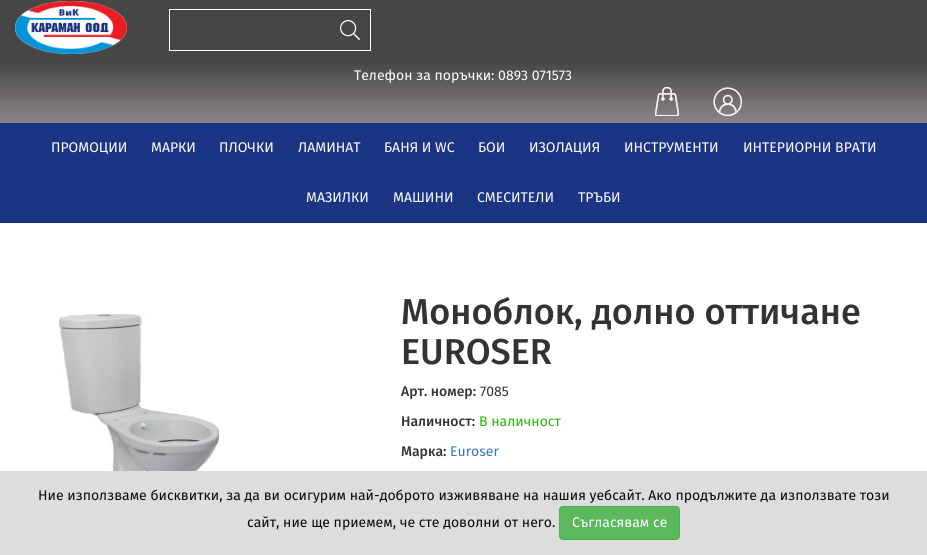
import math
import cairo


def use_color(cr, r, g, b):
  cr.set_source_rgb(r / 255, g / 255, b / 255)

def text(cr, x, y, s, family, size, color, bold=False, italic=False):
  cr.select_font_face(family, cairo.FONT_SLANT_ITALIC if italic else cairo.FONT_SLANT_NORMAL, cairo.FONT_WEIGHT_BOLD if bold else cairo.FONT_WEIGHT_NORMAL)
  cr.set_font_size(size)
  use_color(cr, *color)
  cr.move_to(x, y)
  cr.show_text(s)

def box(cr, x, y, w, h, *color):
  use_color(cr, *color)
  cr.rectangle(x, y, w, h)
  cr.fill()

def round_rect(cr, x, y, w, h, r):
  cr.new_sub_path()
  for i, (u, v) in enumerate([(x + w - r, y + h - r), (x + r, y + h - r), (x + r, y + r), (x + w - r, y + r)]):
    cr.arc(u, v, r, i * math.pi / 2, (i + 1) * math.pi / 2)
  cr.close_path()

def picture(cr, path, x, y, w, h):
  cr.save()
  cr.set_source_surface(cairo.ImageSurface.create_from_png(path), x, y)
  cr.rectangle(x, y, w, h)
  cr.fill()
  cr.restore()

def draw(cr):
  use_color(cr, 255, 255, 255)
  cr.paint()
  gradient = cairo.LinearGradient(464, 0, 464, 123)
  gradient.add_color_stop_rgba(0.5, 0.275, 0.275, 0.275, 1)
  gradient.add_color_stop_rgba(1, 0.557, 0.525, 0.525, 1)
  cr.set_source(gradient)
  cr.rectangle(0, 0, 927, 123)
  cr.fill()
  picture(cr, "img_01.png", 15, 1, 112, 53)
  cr.rectangle(169.5, 9.5, 201, 41)
  use_color(cr, 255, 255, 255)
  cr.set_line_width(1)
  cr.stroke()
  picture(cr, "img_02.png", 340, 20, 20, 20)
  picture(cr, "img_03.png", 655, 87, 24, 29)
  picture(cr, "img_04.png", 713, 87, 29, 29)
  box(cr, 0, 123, 927, 100, 27, 52, 132)
  picture(cr, "img_05.png", 59, 314, 175, 157)
  box(cr, 0, 471, 927, 84, 221, 221, 221)
  use_color(cr, 92, 184, 92)
  round_rect(cr, 559.5, 506.5, 120, 33, 3.5)
  cr.fill_preserve()
  use_color(cr, 76, 174, 76)
  cr.stroke()
  text(cr, 354, 80, "Телефон за поръчки: 0893 071573", "Fira Sans", 14, (255, 255, 255))
  text(cr, 51, 152, "ПРОМОЦИИ", "Fira Sans", 14, (255, 255, 255))
  text(cr, 151, 152, "МАРКИ", "Fira Sans", 14, (255, 255, 255))
  text(cr, 219, 152, "ПЛОЧКИ", "Fira Sans", 14, (255, 255, 255))
  text(cr, 298, 152, "ЛАМИНАТ", "Fira Sans", 14, (255, 255, 255))
  text(cr, 384, 152, "БАНЯ И WC", "Fira Sans", 14, (255, 255, 255))
  text(cr, 478, 152, "БОИ", "Fira Sans", 14, (255, 255, 255))
  text(cr, 529, 152, "ИЗОЛАЦИЯ", "Fira Sans", 14, (255, 255, 255))
  text(cr, 624, 152, "ИНСТРУМЕНТИ", "Fira Sans", 14, (255, 255, 255))
  text(cr, 743, 152, "ИНТЕРИОРНИ ВРАТИ", "Fira Sans", 14, (255, 255, 255))
  text(cr, 306, 202, "МАЗИЛКИ", "Fira Sans", 14, (255, 255, 255))
  text(cr, 393, 202, "МАШИНИ", "Fira Sans", 14, (255, 255, 255))
  text(cr, 477, 202, "СМЕСИТЕЛИ", "Fira Sans", 14, (255, 255, 255))
  text(cr, 578, 202, "ТРЪБИ", "Fira Sans", 14, (255, 255, 255))
  text(cr, 401, 324, "Моноблок, долно оттичане", "Fira Sans Medium", 36, (51, 51, 51))
  text(cr, 401, 364, "EUROSER", "Fira Sans Medium", 36, (51, 51, 51))
  text(cr, 401, 396, "Арт. номер:", "Fira Sans Medium", 14, (51, 51, 51))
  text(cr, 480, 396, "7085", "Fira Sans", 14, (51, 51, 51))
  text(cr, 401, 426, "Наличност:", "Fira Sans Medium", 14, (51, 51, 51))
  text(cr, 479, 426, "В наличност", "Fira Sans", 14, (36, 184, 0))
  text(cr, 401, 456, "Марка:", "Fira Sans Medium", 14, (51, 51, 51))
  text(cr, 450, 456, "Euroser", "Fira Sans", 14, (51, 122, 183))
  text(cr, 38, 500, "Ние използваме бисквитки, за да ви осигурим най-доброто изживяване на нашия уебсайт. Ако продължите да използвате този", "Fira Sans", 14, (10, 10, 10))
  text(cr, 247, 527, "сайт, ние ще приемем, че сте доволни от него.", "Fira Sans", 14, (10, 10, 10))
  text(cr, 572, 527, "Съгласявам се", "Fira Sans", 14, (255, 255, 255))


surface = cairo.ImageSurface(cairo.FORMAT_RGB24, 927, 555)
cr = cairo.Context(surface)
options = cairo.FontOptions()
options.set_hint_metrics(cairo.HINT_METRICS_OFF)
options.set_hint_style(cairo.HINT_STYLE_NONE)
cr.set_font_options(options)
cr.set_miter_limit(4)
draw(cr)
surface.write_to_png("out.png")
